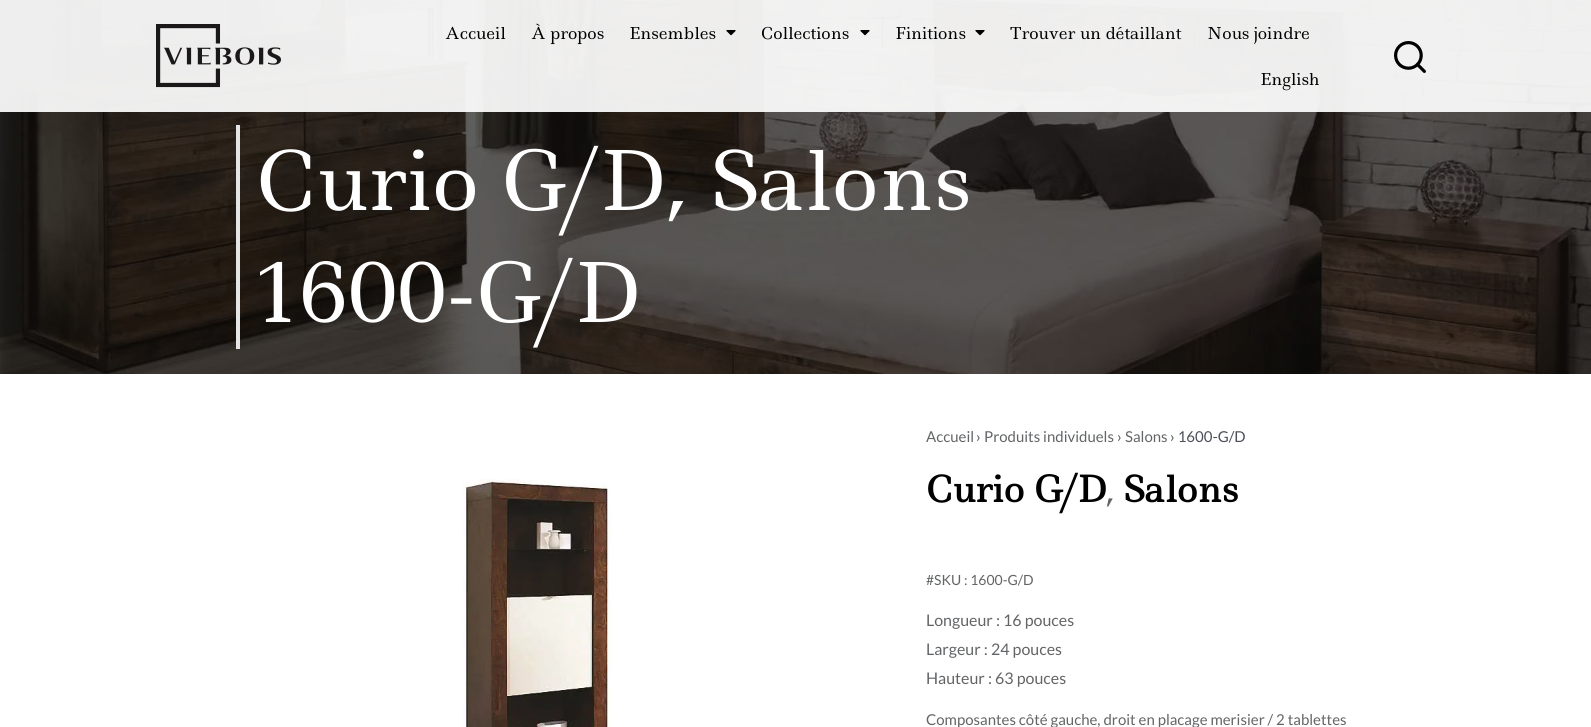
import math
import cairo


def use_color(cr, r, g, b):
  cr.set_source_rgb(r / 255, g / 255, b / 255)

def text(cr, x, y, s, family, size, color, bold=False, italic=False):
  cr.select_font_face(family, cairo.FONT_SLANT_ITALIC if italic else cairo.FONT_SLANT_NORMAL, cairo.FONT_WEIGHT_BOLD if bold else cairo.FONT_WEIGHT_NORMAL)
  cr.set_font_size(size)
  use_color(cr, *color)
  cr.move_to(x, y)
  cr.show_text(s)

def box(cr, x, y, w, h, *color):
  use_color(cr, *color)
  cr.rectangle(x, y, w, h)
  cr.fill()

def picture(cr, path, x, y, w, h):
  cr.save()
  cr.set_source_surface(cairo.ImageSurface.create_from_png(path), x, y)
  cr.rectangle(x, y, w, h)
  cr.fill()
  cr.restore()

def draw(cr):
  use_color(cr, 255, 255, 255)
  cr.paint()
  box(cr, 0, 0, 1591, 374, 0, 0, 0)
  picture(cr, "img_06.png", 0, 0, 1591, 374)
  cr.set_source_rgba(1, 1, 1, 0.92)
  cr.rectangle(0, 0, 1591, 112)
  cr.fill()
  picture(cr, "img_01.png", 156, 24, 125, 64)
  box(cr, 616, 18, 1, 2, 236, 236, 236)
  picture(cr, "img_02.png", 726, 30, 10, 6)
  picture(cr, "img_03.png", 860, 30, 10, 6)
  box(cr, 882, 18, 1, 30, 236, 236, 236)
  picture(cr, "img_04.png", 975, 30, 10, 6)
  box(cr, 997, 18, 1, 30, 236, 236, 236)
  box(cr, 1194, 32, 1, 16, 236, 236, 236)
  picture(cr, "img_05.png", 1394, 41, 32, 32)
  box(cr, 236, 125, 4, 224, 229, 229, 229)
  picture(cr, "img_07.png", 463, 479, 149, 248)
  text(cr, 445, 39, "Accueil", "Ledger", 16, (0, 0, 0))
  text(cr, 531, 39, "À propos", "Ledger", 16, (0, 0, 0))
  text(cr, 629, 39, "Ensembles", "Ledger", 16, (0, 0, 0))
  text(cr, 761, 39, "Collections", "Ledger", 16, (0, 0, 0))
  text(cr, 895, 39, "Finitions", "Ledger", 16, (0, 0, 0))
  text(cr, 1010, 39, "Trouver un détaillant", "Ledger", 16, (0, 0, 0))
  text(cr, 1207, 39, "Nous joindre", "Ledger", 16, (0, 0, 0))
  text(cr, 1260, 85, "English", "Ledger", 16, (0, 0, 0))
  text(cr, 256, 210, "Curio G/D, Salons", "Ledger", 80, (255, 255, 255))
  text(cr, 256, 322, "1600-G/D", "Ledger", 80, (255, 255, 255))
  text(cr, 926, 442, "Accueil", "Lato", 15, (98, 100, 102))
  text(cr, 976, 442, "›", "Lato", 15, (75, 79, 88))
  text(cr, 984, 442, "Produits individuels", "Lato", 15, (98, 100, 102))
  text(cr, 1117, 442, "›", "Lato", 15, (75, 79, 88))
  text(cr, 1125, 442, "Salons", "Lato", 15, (98, 100, 102))
  text(cr, 1170, 442, "› 1600-G/D", "Lato", 15, (75, 79, 88))
  text(cr, 926, 502, "Curio G/D", "Ledger", 35.25, (0, 0, 0), bold=True)
  text(cr, 1106, 502, ",", "Ledger", 32, (98, 100, 102))
  text(cr, 1123, 502, "Salons", "Ledger", 35.25, (0, 0, 0), bold=True)
  text(cr, 926, 585, "#SKU : 1600-G/D", "Lato", 14, (98, 100, 102))
  text(cr, 926, 626, "Longueur : 16 pouces", "Lato", 16, (98, 100, 102))
  text(cr, 926, 655, "Largeur : 24 pouces", "Lato", 16, (98, 100, 102))
  text(cr, 926, 684, "Hauteur : 63 pouces", "Lato", 16, (98, 100, 102))
  text(cr, 926, 725, "Composantes côté gauche, droit en placage merisier / 2 tablettes", "Lato", 15, (98, 100, 102))


surface = cairo.ImageSurface(cairo.FORMAT_RGB24, 1591, 727)
cr = cairo.Context(surface)
options = cairo.FontOptions()
options.set_hint_metrics(cairo.HINT_METRICS_OFF)
options.set_hint_style(cairo.HINT_STYLE_NONE)
cr.set_font_options(options)
cr.set_miter_limit(4)
draw(cr)
surface.write_to_png("out.png")
